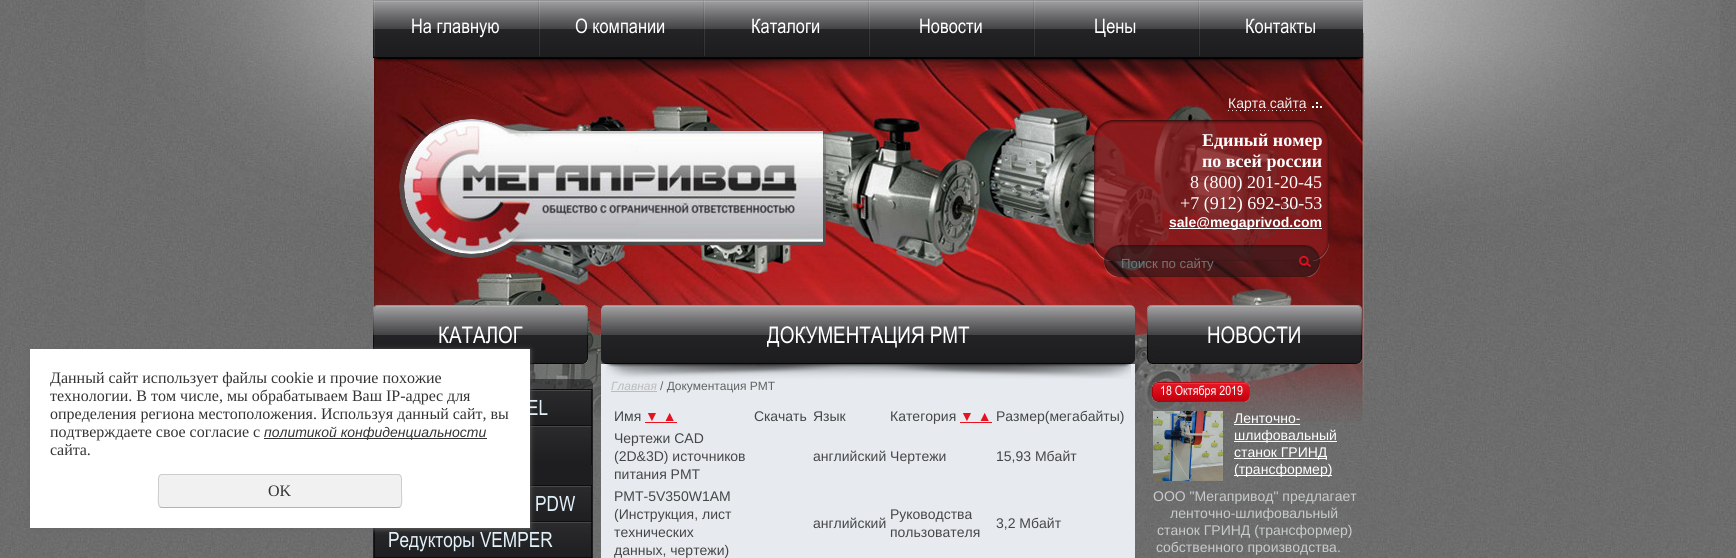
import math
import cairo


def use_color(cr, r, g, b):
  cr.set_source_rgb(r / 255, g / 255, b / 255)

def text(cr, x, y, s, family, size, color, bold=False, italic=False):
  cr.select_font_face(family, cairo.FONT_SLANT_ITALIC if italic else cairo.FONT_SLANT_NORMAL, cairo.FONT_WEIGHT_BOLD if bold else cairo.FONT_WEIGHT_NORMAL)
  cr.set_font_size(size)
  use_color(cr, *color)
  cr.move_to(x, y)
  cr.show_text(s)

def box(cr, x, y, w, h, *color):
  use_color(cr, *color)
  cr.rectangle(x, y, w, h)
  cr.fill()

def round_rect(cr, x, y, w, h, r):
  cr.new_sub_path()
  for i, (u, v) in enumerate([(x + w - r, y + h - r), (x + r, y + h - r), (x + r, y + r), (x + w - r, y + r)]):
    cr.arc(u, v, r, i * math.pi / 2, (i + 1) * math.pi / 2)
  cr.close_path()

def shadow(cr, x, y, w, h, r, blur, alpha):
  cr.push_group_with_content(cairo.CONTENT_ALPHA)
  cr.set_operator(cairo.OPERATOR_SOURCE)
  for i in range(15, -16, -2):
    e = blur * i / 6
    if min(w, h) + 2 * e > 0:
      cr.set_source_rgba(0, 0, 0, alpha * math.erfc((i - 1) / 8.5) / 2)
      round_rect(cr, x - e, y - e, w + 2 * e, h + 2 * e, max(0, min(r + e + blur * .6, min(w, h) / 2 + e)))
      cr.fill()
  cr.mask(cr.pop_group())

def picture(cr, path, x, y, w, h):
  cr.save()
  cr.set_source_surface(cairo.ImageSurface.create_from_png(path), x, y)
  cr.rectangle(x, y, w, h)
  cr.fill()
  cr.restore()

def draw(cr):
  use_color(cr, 255, 255, 255)
  cr.paint()
  picture(cr, "img_01.png", 0, 0, 1736, 558)
  picture(cr, "img_02.png", 145, 0, 1575, 422)
  picture(cr, "img_12.png", 373, 305, 215, 59)
  picture(cr, "img_13.png", 530, 379, 63, 10)
  picture(cr, "img_14.png", 530, 389, 62, 36)
  box(cr, 530, 425, 63, 60, 30, 30, 32)
  picture(cr, "img_15.png", 530, 425, 62, 40)
  picture(cr, "img_14.png", 530, 485, 62, 36)
  box(cr, 373, 521, 220, 37, 30, 30, 32)
  picture(cr, "img_16.png", 374, 521, 218, 36)
  use_color(cr, 102, 102, 102)
  shadow(cr, 30, 350, 500, 179, 0, 2.5, 1)
  picture(cr, "img_03.png", 373, 0, 990, 58)
  picture(cr, "img_04.png", 373, 0, 2, 56)
  picture(cr, "img_04.png", 538, 0, 2, 56)
  picture(cr, "img_04.png", 703, 0, 2, 56)
  picture(cr, "img_04.png", 868, 0, 2, 56)
  picture(cr, "img_04.png", 1033, 0, 2, 56)
  picture(cr, "img_04.png", 1198, 0, 2, 56)
  picture(cr, "img_05.png", 373, 58, 990, 26)
  picture(cr, "img_06.png", 399, 115, 427, 143)
  picture(cr, "img_07.png", 1312, 102, 10, 6)
  picture(cr, "img_08.png", 1228, 110, 77, 1)
  picture(cr, "img_09.png", 1094, 120, 235, 141)
  box(cr, 1169, 228, 153, 1, 255, 255, 255)
  picture(cr, "img_10.png", 1104, 245, 216, 32)
  picture(cr, "img_11.png", 1298, 256, 13, 13)
  box(cr, 592, 389, 1, 36, 30, 30, 32)
  box(cr, 592, 485, 1, 36, 30, 30, 32)
  picture(cr, "img_17.png", 374, 557, 218, 1)
  picture(cr, "img_18.png", 601, 305, 534, 59)
  box(cr, 601, 364, 534, 194, 231, 235, 240)
  picture(cr, "img_19.png", 606, 364, 525, 15)
  box(cr, 611, 391, 46, 1, 187, 187, 187)
  box(cr, 645, 422, 32, 1, 231, 18, 32)
  box(cr, 960, 422, 32, 1, 231, 18, 32)
  picture(cr, "img_20.png", 1147, 305, 215, 59)
  picture(cr, "img_21.png", 1152, 382, 98, 20)
  box(cr, 1234, 424, 66, 1, 255, 255, 255)
  box(cr, 1234, 441, 103, 1, 255, 255, 255)
  box(cr, 1234, 458, 93, 1, 255, 255, 255)
  box(cr, 1234, 475, 98, 1, 255, 255, 255)
  picture(cr, "img_22.png", 1153, 411, 70, 70)
  text(cr, 411, 33, "На главную", "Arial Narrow", 20, (255, 255, 255))
  text(cr, 575, 33, "О компании", "Arial Narrow", 20, (255, 255, 255))
  text(cr, 751, 33, "Каталоги", "Arial Narrow", 20, (255, 255, 255))
  text(cr, 919, 33, "Новости", "Arial Narrow", 20, (255, 255, 255))
  text(cr, 1094, 33, "Цены", "Arial Narrow", 20, (255, 255, 255))
  text(cr, 1245, 33, "Контакты", "Arial Narrow", 20, (255, 255, 255))
  text(cr, 1228, 108, "Карта сайта", "Liberation Sans", 14, (241, 241, 241))
  text(cr, 1202, 146, "Единый номер", "Liberation Serif", 18, (255, 255, 255), bold=True)
  text(cr, 1202, 167, "по всей россии", "Liberation Serif", 18, (255, 255, 255), bold=True)
  text(cr, 1190, 188, "8 (800) 201-20-45", "Liberation Serif", 18, (255, 255, 255))
  text(cr, 1180, 209, "+7 (912) 692-30-53", "Liberation Serif", 18, (255, 255, 255))
  text(cr, 1169, 227, "sale@megaprivod.com", "Liberation Sans", 14, (255, 255, 255), bold=True)
  text(cr, 1121, 268, "Поиск по сайту", "Liberation Sans", 13.25, (117, 117, 117))
  text(cr, 438, 343, "КАТАЛОГ", "Arial Narrow", 23, (255, 255, 255))
  text(cr, 527, 415, "EL", "Arial Narrow", 21, (226, 241, 250))
  box(cr, 30, 349, 500, 179, 255, 255, 255)
  use_color(cr, 241, 241, 241)
  round_rect(cr, 158, 474, 244, 34, 4)
  cr.fill()
  cr.new_path()
  cr.move_to(400.5, 506.5)
  cr.curve_to(400, 507, 399, 507.5, 398, 507.5)
  cr.line_to(162, 507.5)
  cr.curve_to(161, 507.5, 160, 507, 159.5, 506.5)
  use_color(cr, 179, 179, 179)
  cr.set_line_width(1)
  cr.stroke()
  cr.new_path()
  cr.move_to(159.5, 506.5)
  cr.curve_to(157.5, 504, 158.5, 494, 158.5, 491)
  cr.line_to(158.5, 482.5)
  cr.curve_to(158.5, 479.5, 158, 474.5, 162, 474.5)
  cr.line_to(398, 474.5)
  cr.curve_to(402, 474.5, 401.5, 479.5, 401.5, 482.5)
  cr.line_to(401.5, 491)
  cr.curve_to(401.5, 494, 402.5, 504, 400.5, 506.5)
  use_color(cr, 204, 204, 204)
  cr.stroke()
  text(cr, 268, 496, "OK", "Liberation Serif", 16, (51, 51, 51))
  text(cr, 50, 455, "сайта.", "Liberation Serif", 16, (51, 51, 51))
  box(cr, 264, 438, 223, 1, 51, 51, 51)
  text(cr, 264, 437, "политикой конфиденциальности", "Liberation Sans", 14, (51, 51, 51), italic=True)
  text(cr, 50, 437, "подтверждаете свое согласие с", "Liberation Serif", 16, (51, 51, 51))
  text(cr, 50, 419, "определения региона местоположения. Используя данный сайт, вы", "Liberation Serif", 16, (51, 51, 51))
  text(cr, 50, 401, "технологии. В том числе, мы обрабатываем Ваш IP-адрес для", "Liberation Serif", 16, (51, 51, 51))
  text(cr, 50, 383, "Данный сайт использует файлы cookie и прочие похожие", "Liberation Serif", 16, (51, 51, 51))
  text(cr, 535, 511, "PDW", "Arial Narrow", 21, (226, 241, 250))
  text(cr, 388, 547, "Редукторы VEMPER", "Arial Narrow", 21, (226, 241, 250))
  text(cr, 767, 343, "ДОКУМЕНТАЦИЯ PMT", "Arial Narrow", 23, (255, 255, 255))
  text(cr, 611, 390, "Главная", "Liberation Sans", 12, (187, 187, 187), italic=True)
  text(cr, 660, 390, "/ Документация PMT", "Liberation Sans", 12, (98, 98, 98))
  text(cr, 614, 421, "Имя", "Liberation Sans", 14, (70, 70, 70))
  text(cr, 645, 421, "▼ ▲", "Liberation Sans", 14, (231, 18, 32), italic=True)
  text(cr, 754, 421, "Скачать", "Liberation Sans", 14, (70, 70, 70))
  text(cr, 813, 421, "Язык", "Liberation Sans", 14, (70, 70, 70))
  text(cr, 890, 421, "Категория", "Liberation Sans", 14, (70, 70, 70))
  text(cr, 960, 421, "▼ ▲", "Liberation Sans", 14, (231, 18, 32), italic=True)
  text(cr, 996, 421, "Размер(мегабайты)", "Liberation Sans", 14, (70, 70, 70))
  text(cr, 614, 443, "Чертежи CAD", "Liberation Sans", 14, (70, 70, 70))
  text(cr, 614, 461, "(2D&3D) источников", "Liberation Sans", 14, (70, 70, 70))
  text(cr, 614, 479, "питания PMT", "Liberation Sans", 14, (70, 70, 70))
  text(cr, 813, 461, "английский Чертежи", "Liberation Sans", 14, (70, 70, 70))
  text(cr, 996, 461, "15,93 Мбайт", "Liberation Sans", 14, (70, 70, 70))
  text(cr, 614, 501, "PMT-5V350W1AM", "Liberation Sans", 14, (70, 70, 70))
  text(cr, 614, 519, "(Инструкция, лист", "Liberation Sans", 14, (70, 70, 70))
  text(cr, 614, 537, "технических", "Liberation Sans", 14, (70, 70, 70))
  text(cr, 614, 555, "данных, чертежи)", "Liberation Sans", 14, (70, 70, 70))
  text(cr, 813, 528, "английский", "Liberation Sans", 14, (70, 70, 70))
  text(cr, 890, 519, "Руководства", "Liberation Sans", 14, (70, 70, 70))
  text(cr, 890, 537, "пользователя", "Liberation Sans", 14, (70, 70, 70))
  text(cr, 996, 528, "3,2 Мбайт", "Liberation Sans", 14, (70, 70, 70))
  text(cr, 1207, 343, "НОВОСТИ", "Arial Narrow", 23, (255, 255, 255))
  text(cr, 1160, 395, "18 Октября 2019", "Arial Narrow", 13, (255, 255, 255))
  text(cr, 1234, 423, "Ленточно-", "Liberation Sans", 14, (255, 255, 255))
  text(cr, 1234, 440, "шлифовальный", "Liberation Sans", 14, (255, 255, 255))
  text(cr, 1234, 457, "станок ГРИНД", "Liberation Sans", 14, (255, 255, 255))
  text(cr, 1234, 474, "(трансформер)", "Liberation Sans", 14, (255, 255, 255))
  text(cr, 1153, 501, "ООО \"Мегапривод\" предлагает", "Liberation Sans", 14, (199, 204, 203))
  text(cr, 1170, 518, "ленточно-шлифовальный", "Liberation Sans", 14, (199, 204, 203))
  text(cr, 1157, 535, "станок ГРИНД (трансформер)", "Liberation Sans", 14, (199, 204, 203))
  text(cr, 1156, 552, "собственного производства.", "Liberation Sans", 14, (199, 204, 203))


surface = cairo.ImageSurface(cairo.FORMAT_RGB24, 1736, 558)
cr = cairo.Context(surface)
options = cairo.FontOptions()
options.set_hint_metrics(cairo.HINT_METRICS_OFF)
options.set_hint_style(cairo.HINT_STYLE_NONE)
cr.set_font_options(options)
cr.set_miter_limit(4)
draw(cr)
surface.write_to_png("out.png")
